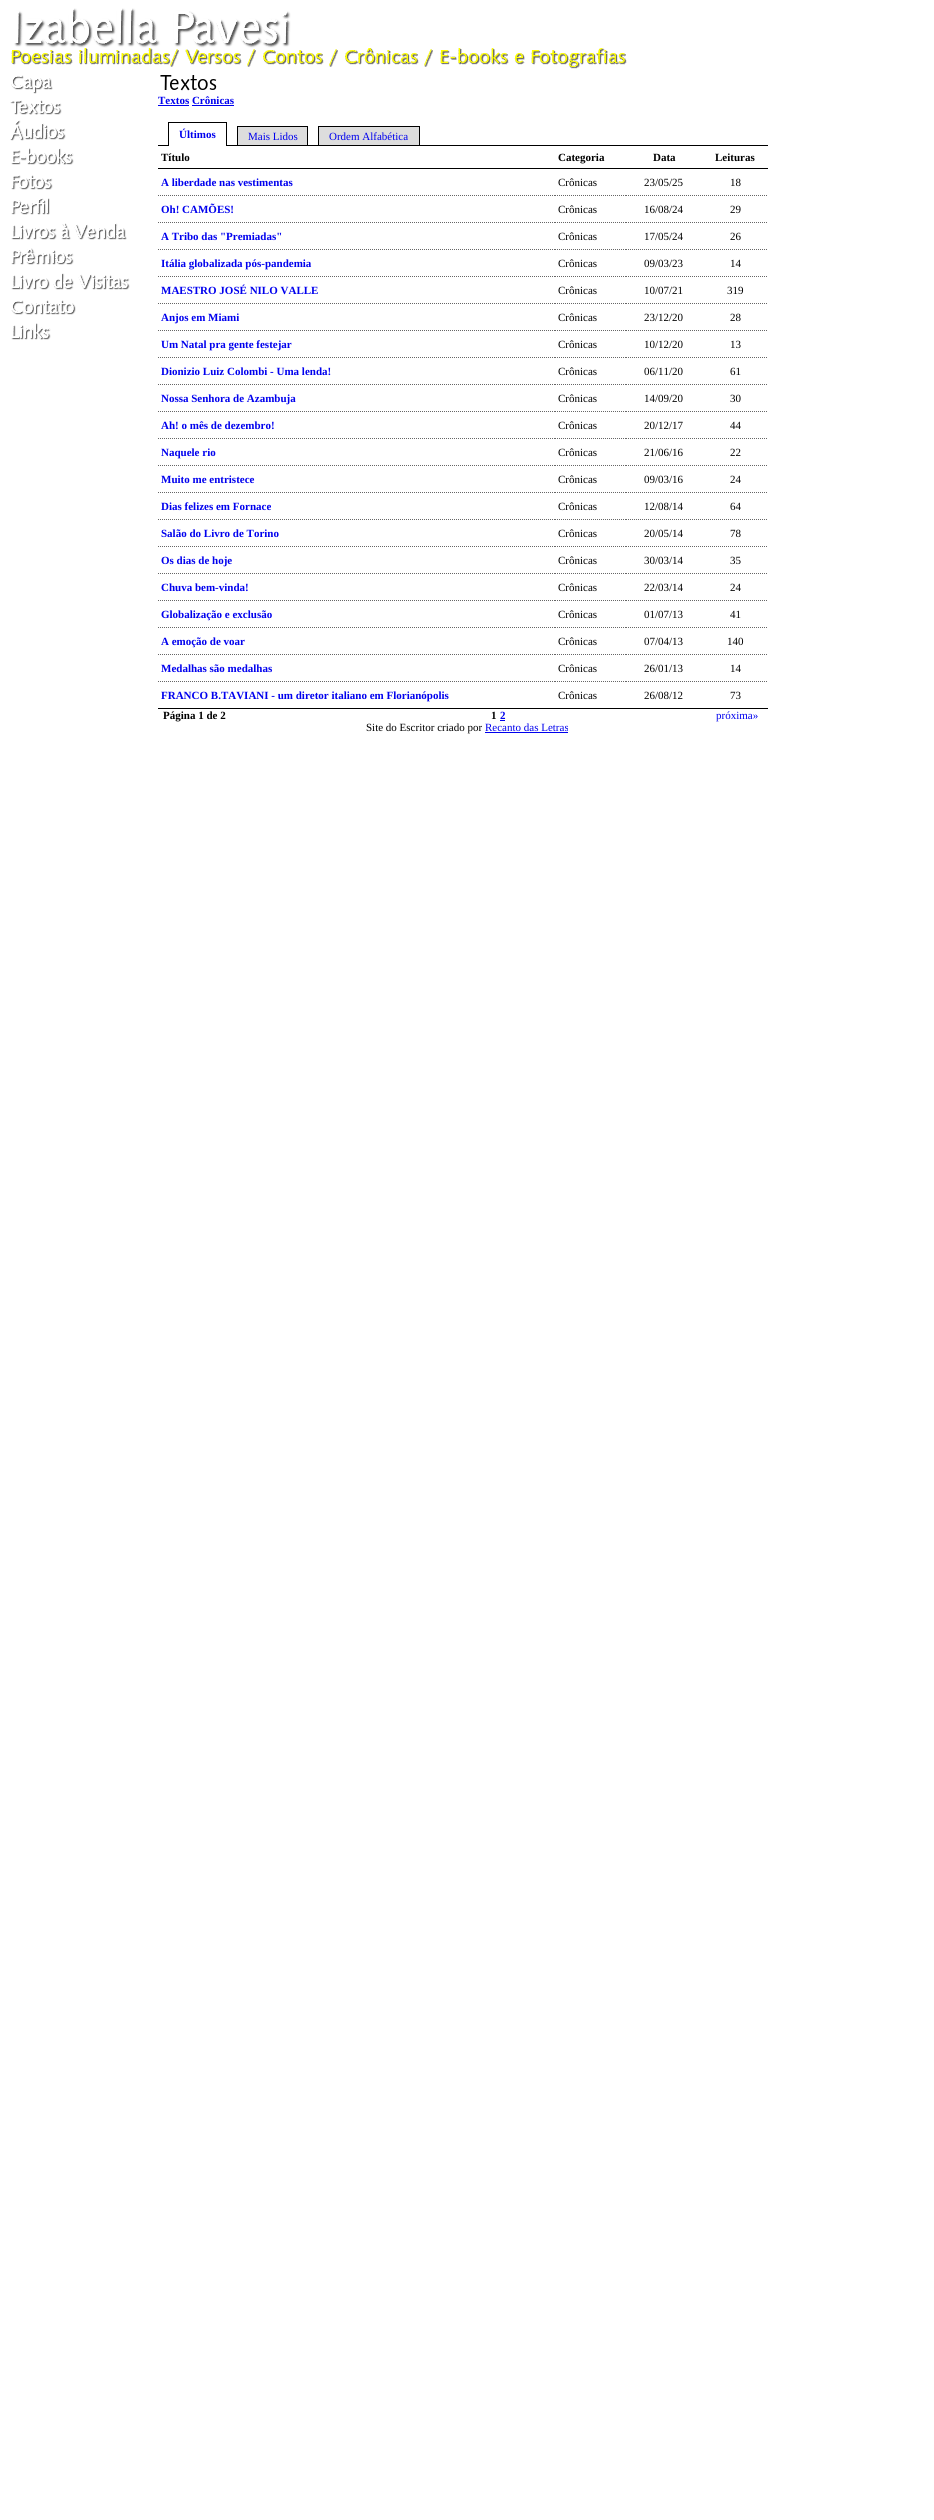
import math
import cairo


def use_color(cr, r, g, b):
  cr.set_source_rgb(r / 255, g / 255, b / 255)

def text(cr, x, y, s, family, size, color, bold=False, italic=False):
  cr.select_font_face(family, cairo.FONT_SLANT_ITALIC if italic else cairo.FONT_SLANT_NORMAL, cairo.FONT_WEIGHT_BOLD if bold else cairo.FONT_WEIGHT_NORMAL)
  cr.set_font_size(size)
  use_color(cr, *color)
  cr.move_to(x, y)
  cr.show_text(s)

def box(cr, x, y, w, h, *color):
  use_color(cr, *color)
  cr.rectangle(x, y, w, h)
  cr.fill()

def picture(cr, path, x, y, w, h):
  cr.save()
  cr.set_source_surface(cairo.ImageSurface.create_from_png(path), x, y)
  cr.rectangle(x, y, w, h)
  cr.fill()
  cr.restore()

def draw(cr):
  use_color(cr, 255, 255, 255)
  cr.paint()
  picture(cr, "img_01.png", 14, 8, 277, 40)
  picture(cr, "img_02.png", 11, 48, 616, 21)
  picture(cr, "img_03.png", 11, 75, 42, 19)
  picture(cr, "img_04.png", 10, 100, 52, 15)
  picture(cr, "img_05.png", 10, 120, 56, 21)
  picture(cr, "img_06.png", 11, 148, 63, 17)
  picture(cr, "img_07.png", 11, 175, 42, 15)
  picture(cr, "img_08.png", 11, 198, 39, 17)
  picture(cr, "img_09.png", 11, 223, 116, 17)
  picture(cr, "img_10.png", 11, 248, 63, 17)
  picture(cr, "img_11.png", 11, 273, 119, 17)
  picture(cr, "img_12.png", 11, 300, 65, 15)
  picture(cr, "img_13.png", 11, 323, 40, 17)
  picture(cr, "img_14.png", 160, 75, 57, 16)
  box(cr, 158, 105, 31, 1, 0, 0, 238)
  box(cr, 192, 105, 42, 1, 0, 0, 238)
  box(cr, 158, 145, 610, 1, 0, 0, 0)
  box(cr, 169, 145, 57, 1, 255, 255, 255)
  box(cr, 168, 122, 59, 1, 0, 0, 0)
  box(cr, 226, 122, 1, 24, 0, 0, 0)
  box(cr, 168, 122, 1, 24, 0, 0, 0)
  use_color(cr, 221, 221, 221)
  cr.rectangle(237.5, 126.5, 70, 19)
  cr.fill_preserve()
  use_color(cr, 0, 0, 0)
  cr.set_line_width(1)
  cr.stroke()
  use_color(cr, 221, 221, 221)
  cr.rectangle(318.5, 126.5, 101, 19)
  cr.fill_preserve()
  use_color(cr, 0, 0, 0)
  cr.stroke()
  box(cr, 158, 168, 610, 1, 0, 0, 0)
  cr.new_path()
  cr.move_to(158, 195.5)
  cr.line_to(555, 195.5)
  use_color(cr, 102, 102, 102)
  cr.set_dash([1, 1])
  cr.stroke()
  cr.new_path()
  cr.move_to(555, 195.5)
  cr.line_to(626, 195.5)
  cr.stroke()
  cr.new_path()
  cr.move_to(626, 195.5)
  cr.line_to(702, 195.5)
  cr.stroke()
  cr.new_path()
  cr.move_to(702, 195.5)
  cr.line_to(768, 195.5)
  cr.stroke()
  cr.new_path()
  cr.move_to(158, 222.5)
  cr.line_to(555, 222.5)
  cr.stroke()
  cr.new_path()
  cr.move_to(555, 222.5)
  cr.line_to(626, 222.5)
  cr.stroke()
  cr.new_path()
  cr.move_to(626, 222.5)
  cr.line_to(702, 222.5)
  cr.stroke()
  cr.new_path()
  cr.move_to(702, 222.5)
  cr.line_to(768, 222.5)
  cr.stroke()
  cr.new_path()
  cr.move_to(158, 249.5)
  cr.line_to(555, 249.5)
  cr.stroke()
  cr.new_path()
  cr.move_to(555, 249.5)
  cr.line_to(626, 249.5)
  cr.stroke()
  cr.new_path()
  cr.move_to(626, 249.5)
  cr.line_to(702, 249.5)
  cr.stroke()
  cr.new_path()
  cr.move_to(702, 249.5)
  cr.line_to(768, 249.5)
  cr.stroke()
  cr.new_path()
  cr.move_to(158, 276.5)
  cr.line_to(555, 276.5)
  cr.stroke()
  cr.new_path()
  cr.move_to(555, 276.5)
  cr.line_to(626, 276.5)
  cr.stroke()
  cr.new_path()
  cr.move_to(626, 276.5)
  cr.line_to(702, 276.5)
  cr.stroke()
  cr.new_path()
  cr.move_to(702, 276.5)
  cr.line_to(768, 276.5)
  cr.stroke()
  cr.new_path()
  cr.move_to(158, 303.5)
  cr.line_to(555, 303.5)
  cr.stroke()
  cr.new_path()
  cr.move_to(555, 303.5)
  cr.line_to(626, 303.5)
  cr.stroke()
  cr.new_path()
  cr.move_to(626, 303.5)
  cr.line_to(702, 303.5)
  cr.stroke()
  cr.new_path()
  cr.move_to(702, 303.5)
  cr.line_to(768, 303.5)
  cr.stroke()
  cr.new_path()
  cr.move_to(158, 330.5)
  cr.line_to(555, 330.5)
  cr.stroke()
  cr.new_path()
  cr.move_to(555, 330.5)
  cr.line_to(626, 330.5)
  cr.stroke()
  cr.new_path()
  cr.move_to(626, 330.5)
  cr.line_to(702, 330.5)
  cr.stroke()
  cr.new_path()
  cr.move_to(702, 330.5)
  cr.line_to(768, 330.5)
  cr.stroke()
  cr.new_path()
  cr.move_to(158, 357.5)
  cr.line_to(555, 357.5)
  cr.stroke()
  cr.new_path()
  cr.move_to(555, 357.5)
  cr.line_to(626, 357.5)
  cr.stroke()
  cr.new_path()
  cr.move_to(626, 357.5)
  cr.line_to(702, 357.5)
  cr.stroke()
  cr.new_path()
  cr.move_to(702, 357.5)
  cr.line_to(768, 357.5)
  cr.stroke()
  cr.new_path()
  cr.move_to(158, 384.5)
  cr.line_to(555, 384.5)
  cr.stroke()
  cr.new_path()
  cr.move_to(555, 384.5)
  cr.line_to(626, 384.5)
  cr.stroke()
  cr.new_path()
  cr.move_to(626, 384.5)
  cr.line_to(702, 384.5)
  cr.stroke()
  cr.new_path()
  cr.move_to(702, 384.5)
  cr.line_to(768, 384.5)
  cr.stroke()
  cr.new_path()
  cr.move_to(158, 411.5)
  cr.line_to(555, 411.5)
  cr.stroke()
  cr.new_path()
  cr.move_to(555, 411.5)
  cr.line_to(626, 411.5)
  cr.stroke()
  cr.new_path()
  cr.move_to(626, 411.5)
  cr.line_to(702, 411.5)
  cr.stroke()
  cr.new_path()
  cr.move_to(702, 411.5)
  cr.line_to(768, 411.5)
  cr.stroke()
  cr.new_path()
  cr.move_to(158, 438.5)
  cr.line_to(555, 438.5)
  cr.stroke()
  cr.new_path()
  cr.move_to(555, 438.5)
  cr.line_to(626, 438.5)
  cr.stroke()
  cr.new_path()
  cr.move_to(626, 438.5)
  cr.line_to(702, 438.5)
  cr.stroke()
  cr.new_path()
  cr.move_to(702, 438.5)
  cr.line_to(768, 438.5)
  cr.stroke()
  cr.new_path()
  cr.move_to(158, 465.5)
  cr.line_to(555, 465.5)
  cr.stroke()
  cr.new_path()
  cr.move_to(555, 465.5)
  cr.line_to(626, 465.5)
  cr.stroke()
  cr.new_path()
  cr.move_to(626, 465.5)
  cr.line_to(702, 465.5)
  cr.stroke()
  cr.new_path()
  cr.move_to(702, 465.5)
  cr.line_to(768, 465.5)
  cr.stroke()
  cr.new_path()
  cr.move_to(158, 492.5)
  cr.line_to(555, 492.5)
  cr.stroke()
  cr.new_path()
  cr.move_to(555, 492.5)
  cr.line_to(626, 492.5)
  cr.stroke()
  cr.new_path()
  cr.move_to(626, 492.5)
  cr.line_to(702, 492.5)
  cr.stroke()
  cr.new_path()
  cr.move_to(702, 492.5)
  cr.line_to(768, 492.5)
  cr.stroke()
  cr.new_path()
  cr.move_to(158, 519.5)
  cr.line_to(555, 519.5)
  cr.stroke()
  cr.new_path()
  cr.move_to(555, 519.5)
  cr.line_to(626, 519.5)
  cr.stroke()
  cr.new_path()
  cr.move_to(626, 519.5)
  cr.line_to(702, 519.5)
  cr.stroke()
  cr.new_path()
  cr.move_to(702, 519.5)
  cr.line_to(768, 519.5)
  cr.stroke()
  cr.new_path()
  cr.move_to(158, 546.5)
  cr.line_to(555, 546.5)
  cr.stroke()
  cr.new_path()
  cr.move_to(555, 546.5)
  cr.line_to(626, 546.5)
  cr.stroke()
  cr.new_path()
  cr.move_to(626, 546.5)
  cr.line_to(702, 546.5)
  cr.stroke()
  cr.new_path()
  cr.move_to(702, 546.5)
  cr.line_to(768, 546.5)
  cr.stroke()
  cr.new_path()
  cr.move_to(158, 573.5)
  cr.line_to(555, 573.5)
  cr.stroke()
  cr.new_path()
  cr.move_to(555, 573.5)
  cr.line_to(626, 573.5)
  cr.stroke()
  cr.new_path()
  cr.move_to(626, 573.5)
  cr.line_to(702, 573.5)
  cr.stroke()
  cr.new_path()
  cr.move_to(702, 573.5)
  cr.line_to(768, 573.5)
  cr.stroke()
  cr.new_path()
  cr.move_to(158, 600.5)
  cr.line_to(555, 600.5)
  cr.stroke()
  cr.new_path()
  cr.move_to(555, 600.5)
  cr.line_to(626, 600.5)
  cr.stroke()
  cr.new_path()
  cr.move_to(626, 600.5)
  cr.line_to(702, 600.5)
  cr.stroke()
  cr.new_path()
  cr.move_to(702, 600.5)
  cr.line_to(768, 600.5)
  cr.stroke()
  cr.new_path()
  cr.move_to(158, 627.5)
  cr.line_to(555, 627.5)
  cr.stroke()
  cr.new_path()
  cr.move_to(555, 627.5)
  cr.line_to(626, 627.5)
  cr.stroke()
  cr.new_path()
  cr.move_to(626, 627.5)
  cr.line_to(702, 627.5)
  cr.stroke()
  cr.new_path()
  cr.move_to(702, 627.5)
  cr.line_to(768, 627.5)
  cr.stroke()
  cr.new_path()
  cr.move_to(158, 654.5)
  cr.line_to(555, 654.5)
  cr.stroke()
  cr.new_path()
  cr.move_to(555, 654.5)
  cr.line_to(626, 654.5)
  cr.stroke()
  cr.new_path()
  cr.move_to(626, 654.5)
  cr.line_to(702, 654.5)
  cr.stroke()
  cr.new_path()
  cr.move_to(702, 654.5)
  cr.line_to(768, 654.5)
  cr.stroke()
  cr.new_path()
  cr.move_to(158, 681.5)
  cr.line_to(555, 681.5)
  cr.stroke()
  cr.new_path()
  cr.move_to(555, 681.5)
  cr.line_to(626, 681.5)
  cr.stroke()
  cr.new_path()
  cr.move_to(626, 681.5)
  cr.line_to(702, 681.5)
  cr.stroke()
  cr.new_path()
  cr.move_to(702, 681.5)
  cr.line_to(768, 681.5)
  cr.stroke()
  box(cr, 158, 708, 610, 1, 0, 0, 0)
  box(cr, 500, 720, 5, 1, 0, 0, 238)
  box(cr, 485, 732, 83, 1, 0, 0, 238)
  text(cr, 158, 104, "Textos Crônicas", "Liberation Serif", 11, (0, 0, 238), bold=True)
  text(cr, 179, 138, "Últimos", "Liberation Serif", 11, (0, 0, 238), bold=True)
  text(cr, 248, 140, "Mais Lidos", "Liberation Serif", 11, (0, 0, 238))
  text(cr, 329, 140, "Ordem Alfabética", "Liberation Serif", 11, (0, 0, 238))
  text(cr, 161, 161, "Título", "Liberation Serif", 11, (0, 0, 0), bold=True)
  text(cr, 558, 161, "Categoria", "Liberation Serif", 11, (0, 0, 0), bold=True)
  text(cr, 653, 161, "Data", "Liberation Serif", 11, (0, 0, 0), bold=True)
  text(cr, 715, 161, "Leituras", "Liberation Serif", 11, (0, 0, 0), bold=True)
  text(cr, 161, 186, "A liberdade nas vestimentas", "Liberation Serif", 11, (0, 0, 238), bold=True)
  text(cr, 558, 186, "Crônicas", "Liberation Serif", 11, (0, 0, 0))
  text(cr, 644, 186, "23/05/25", "Liberation Serif", 11, (0, 0, 0))
  text(cr, 730, 186, "18", "Liberation Serif", 11, (0, 0, 0))
  text(cr, 161, 213, "Oh! CAMÕES!", "Liberation Serif", 11, (0, 0, 238), bold=True)
  text(cr, 558, 213, "Crônicas", "Liberation Serif", 11, (0, 0, 0))
  text(cr, 644, 213, "16/08/24", "Liberation Serif", 11, (0, 0, 0))
  text(cr, 730, 213, "29", "Liberation Serif", 11, (0, 0, 0))
  text(cr, 161, 240, "A Tribo das \"Premiadas\"", "Liberation Serif", 11, (0, 0, 238), bold=True)
  text(cr, 558, 240, "Crônicas", "Liberation Serif", 11, (0, 0, 0))
  text(cr, 644, 240, "17/05/24", "Liberation Serif", 11, (0, 0, 0))
  text(cr, 730, 240, "26", "Liberation Serif", 11, (0, 0, 0))
  text(cr, 161, 267, "Itália globalizada pós-pandemia", "Liberation Serif", 11, (0, 0, 238), bold=True)
  text(cr, 558, 267, "Crônicas", "Liberation Serif", 11, (0, 0, 0))
  text(cr, 644, 267, "09/03/23", "Liberation Serif", 11, (0, 0, 0))
  text(cr, 730, 267, "14", "Liberation Serif", 11, (0, 0, 0))
  text(cr, 161, 294, "MAESTRO JOSÉ NILO VALLE", "Liberation Serif", 11, (0, 0, 238), bold=True)
  text(cr, 558, 294, "Crônicas", "Liberation Serif", 11, (0, 0, 0))
  text(cr, 644, 294, "10/07/21", "Liberation Serif", 11, (0, 0, 0))
  text(cr, 727, 294, "319", "Liberation Serif", 11, (0, 0, 0))
  text(cr, 161, 321, "Anjos em Miami", "Liberation Serif", 11, (0, 0, 238), bold=True)
  text(cr, 558, 321, "Crônicas", "Liberation Serif", 11, (0, 0, 0))
  text(cr, 644, 321, "23/12/20", "Liberation Serif", 11, (0, 0, 0))
  text(cr, 730, 321, "28", "Liberation Serif", 11, (0, 0, 0))
  text(cr, 161, 348, "Um Natal pra gente festejar", "Liberation Serif", 11, (0, 0, 238), bold=True)
  text(cr, 558, 348, "Crônicas", "Liberation Serif", 11, (0, 0, 0))
  text(cr, 644, 348, "10/12/20", "Liberation Serif", 11, (0, 0, 0))
  text(cr, 730, 348, "13", "Liberation Serif", 11, (0, 0, 0))
  text(cr, 161, 375, "Dionizio Luiz Colombi - Uma lenda!", "Liberation Serif", 11, (0, 0, 238), bold=True)
  text(cr, 558, 375, "Crônicas", "Liberation Serif", 11, (0, 0, 0))
  text(cr, 644, 375, "06/11/20", "Liberation Serif", 11, (0, 0, 0))
  text(cr, 730, 375, "61", "Liberation Serif", 11, (0, 0, 0))
  text(cr, 161, 402, "Nossa Senhora de Azambuja", "Liberation Serif", 11, (0, 0, 238), bold=True)
  text(cr, 558, 402, "Crônicas", "Liberation Serif", 11, (0, 0, 0))
  text(cr, 644, 402, "14/09/20", "Liberation Serif", 11, (0, 0, 0))
  text(cr, 730, 402, "30", "Liberation Serif", 11, (0, 0, 0))
  text(cr, 161, 429, "Ah! o mês de dezembro!", "Liberation Serif", 11, (0, 0, 238), bold=True)
  text(cr, 558, 429, "Crônicas", "Liberation Serif", 11, (0, 0, 0))
  text(cr, 644, 429, "20/12/17", "Liberation Serif", 11, (0, 0, 0))
  text(cr, 730, 429, "44", "Liberation Serif", 11, (0, 0, 0))
  text(cr, 161, 456, "Naquele rio", "Liberation Serif", 11, (0, 0, 238), bold=True)
  text(cr, 558, 456, "Crônicas", "Liberation Serif", 11, (0, 0, 0))
  text(cr, 644, 456, "21/06/16", "Liberation Serif", 11, (0, 0, 0))
  text(cr, 730, 456, "22", "Liberation Serif", 11, (0, 0, 0))
  text(cr, 161, 483, "Muito me entristece", "Liberation Serif", 11, (0, 0, 238), bold=True)
  text(cr, 558, 483, "Crônicas", "Liberation Serif", 11, (0, 0, 0))
  text(cr, 644, 483, "09/03/16", "Liberation Serif", 11, (0, 0, 0))
  text(cr, 730, 483, "24", "Liberation Serif", 11, (0, 0, 0))
  text(cr, 161, 510, "Dias felizes em Fornace", "Liberation Serif", 11, (0, 0, 238), bold=True)
  text(cr, 558, 510, "Crônicas", "Liberation Serif", 11, (0, 0, 0))
  text(cr, 644, 510, "12/08/14", "Liberation Serif", 11, (0, 0, 0))
  text(cr, 730, 510, "64", "Liberation Serif", 11, (0, 0, 0))
  text(cr, 161, 537, "Salão do Livro de Torino", "Liberation Serif", 11, (0, 0, 238), bold=True)
  text(cr, 558, 537, "Crônicas", "Liberation Serif", 11, (0, 0, 0))
  text(cr, 644, 537, "20/05/14", "Liberation Serif", 11, (0, 0, 0))
  text(cr, 730, 537, "78", "Liberation Serif", 11, (0, 0, 0))
  text(cr, 161, 564, "Os dias de hoje", "Liberation Serif", 11, (0, 0, 238), bold=True)
  text(cr, 558, 564, "Crônicas", "Liberation Serif", 11, (0, 0, 0))
  text(cr, 644, 564, "30/03/14", "Liberation Serif", 11, (0, 0, 0))
  text(cr, 730, 564, "35", "Liberation Serif", 11, (0, 0, 0))
  text(cr, 161, 591, "Chuva bem-vinda!", "Liberation Serif", 11, (0, 0, 238), bold=True)
  text(cr, 558, 591, "Crônicas", "Liberation Serif", 11, (0, 0, 0))
  text(cr, 644, 591, "22/03/14", "Liberation Serif", 11, (0, 0, 0))
  text(cr, 730, 591, "24", "Liberation Serif", 11, (0, 0, 0))
  text(cr, 161, 618, "Globalização e exclusão", "Liberation Serif", 11, (0, 0, 238), bold=True)
  text(cr, 558, 618, "Crônicas", "Liberation Serif", 11, (0, 0, 0))
  text(cr, 644, 618, "01/07/13", "Liberation Serif", 11, (0, 0, 0))
  text(cr, 730, 618, "41", "Liberation Serif", 11, (0, 0, 0))
  text(cr, 161, 645, "A emoção de voar", "Liberation Serif", 11, (0, 0, 238), bold=True)
  text(cr, 558, 645, "Crônicas", "Liberation Serif", 11, (0, 0, 0))
  text(cr, 644, 645, "07/04/13", "Liberation Serif", 11, (0, 0, 0))
  text(cr, 727, 645, "140", "Liberation Serif", 11, (0, 0, 0))
  text(cr, 161, 672, "Medalhas são medalhas", "Liberation Serif", 11, (0, 0, 238), bold=True)
  text(cr, 558, 672, "Crônicas", "Liberation Serif", 11, (0, 0, 0))
  text(cr, 644, 672, "26/01/13", "Liberation Serif", 11, (0, 0, 0))
  text(cr, 730, 672, "14", "Liberation Serif", 11, (0, 0, 0))
  text(cr, 161, 699, "FRANCO B.TAVIANI - um diretor italiano em Florianópolis", "Liberation Serif", 11, (0, 0, 238), bold=True)
  text(cr, 558, 699, "Crônicas", "Liberation Serif", 11, (0, 0, 0))
  text(cr, 644, 699, "26/08/12", "Liberation Serif", 11, (0, 0, 0))
  text(cr, 730, 699, "73", "Liberation Serif", 11, (0, 0, 0))
  text(cr, 163, 719, "Página 1 de 2", "Liberation Serif", 11, (0, 0, 0), bold=True)
  text(cr, 491, 719, "1", "Liberation Serif", 11, (0, 0, 0), bold=True)
  text(cr, 500, 719, "2", "Liberation Serif", 11, (0, 0, 238), bold=True)
  text(cr, 716, 719, "próxima»", "Liberation Serif", 11, (0, 0, 238))
  text(cr, 366, 731, "Site do Escritor criado por", "Liberation Serif", 11, (0, 0, 0))
  text(cr, 485, 731, "Recanto das Letras", "Liberation Serif", 11, (0, 0, 238))


surface = cairo.ImageSurface(cairo.FORMAT_RGB24, 934, 2520)
cr = cairo.Context(surface)
options = cairo.FontOptions()
options.set_hint_metrics(cairo.HINT_METRICS_OFF)
options.set_hint_style(cairo.HINT_STYLE_NONE)
cr.set_font_options(options)
cr.set_miter_limit(4)
draw(cr)
surface.write_to_png("out.png")
